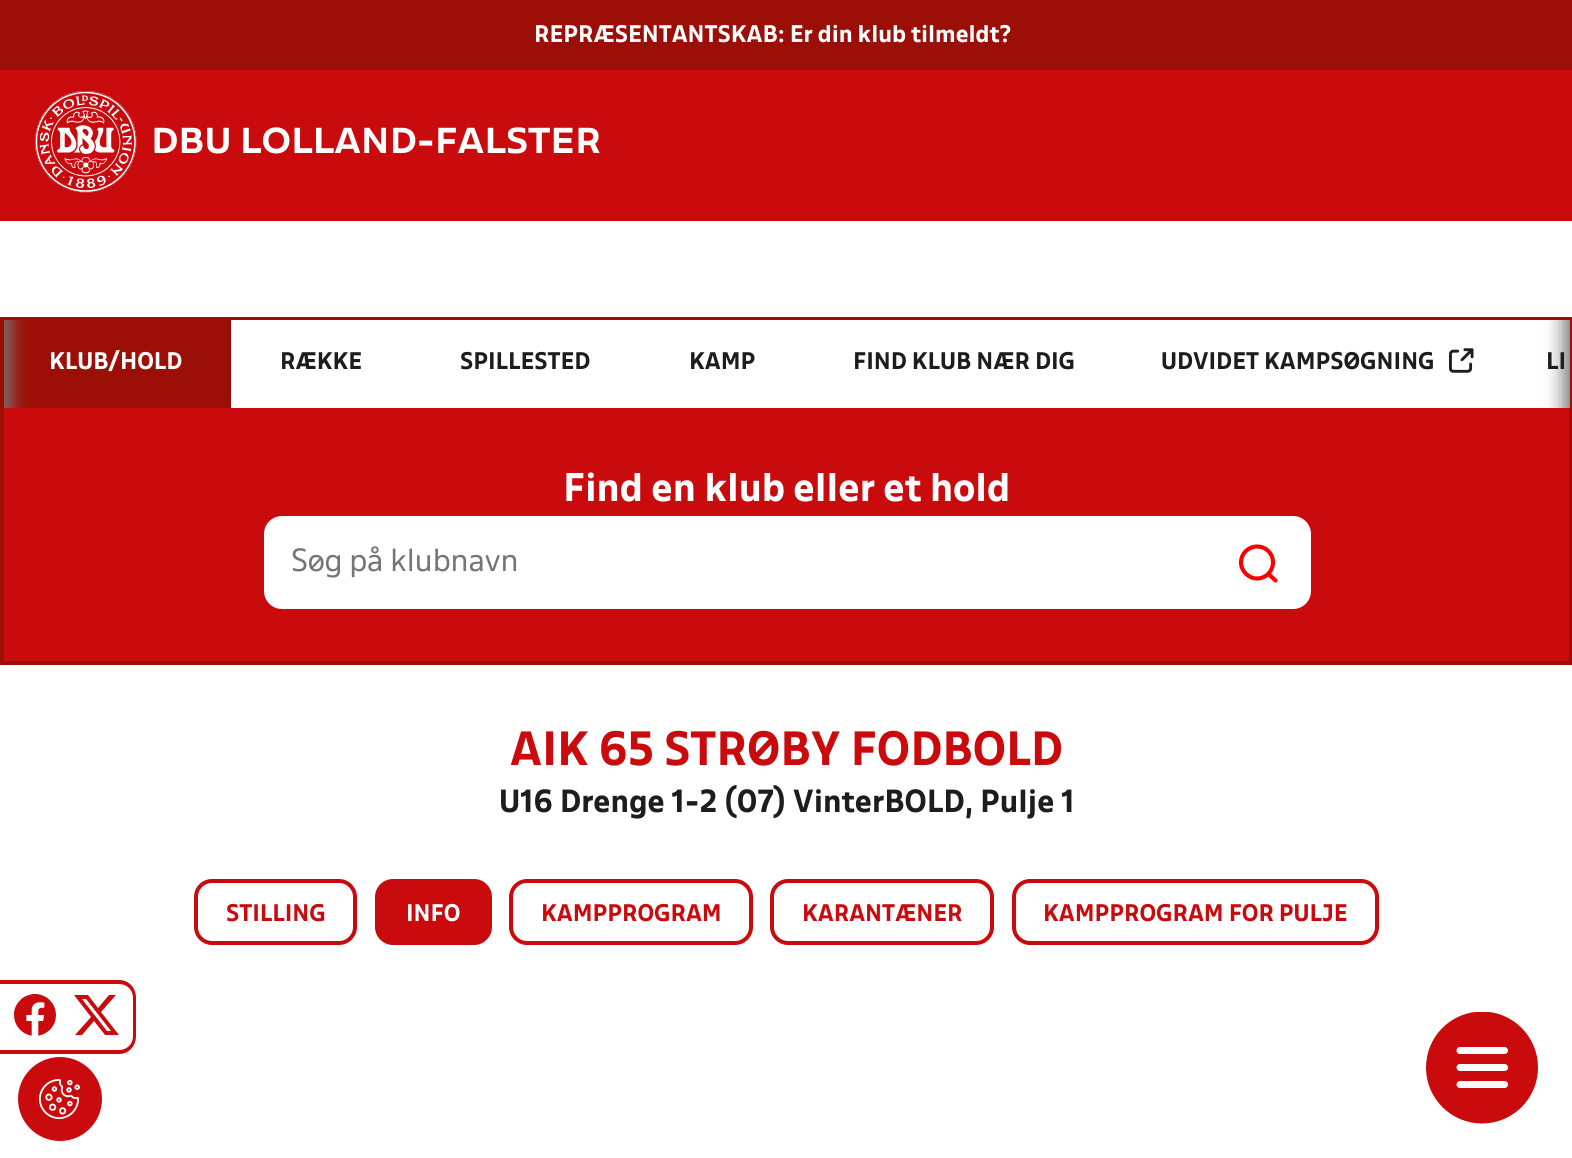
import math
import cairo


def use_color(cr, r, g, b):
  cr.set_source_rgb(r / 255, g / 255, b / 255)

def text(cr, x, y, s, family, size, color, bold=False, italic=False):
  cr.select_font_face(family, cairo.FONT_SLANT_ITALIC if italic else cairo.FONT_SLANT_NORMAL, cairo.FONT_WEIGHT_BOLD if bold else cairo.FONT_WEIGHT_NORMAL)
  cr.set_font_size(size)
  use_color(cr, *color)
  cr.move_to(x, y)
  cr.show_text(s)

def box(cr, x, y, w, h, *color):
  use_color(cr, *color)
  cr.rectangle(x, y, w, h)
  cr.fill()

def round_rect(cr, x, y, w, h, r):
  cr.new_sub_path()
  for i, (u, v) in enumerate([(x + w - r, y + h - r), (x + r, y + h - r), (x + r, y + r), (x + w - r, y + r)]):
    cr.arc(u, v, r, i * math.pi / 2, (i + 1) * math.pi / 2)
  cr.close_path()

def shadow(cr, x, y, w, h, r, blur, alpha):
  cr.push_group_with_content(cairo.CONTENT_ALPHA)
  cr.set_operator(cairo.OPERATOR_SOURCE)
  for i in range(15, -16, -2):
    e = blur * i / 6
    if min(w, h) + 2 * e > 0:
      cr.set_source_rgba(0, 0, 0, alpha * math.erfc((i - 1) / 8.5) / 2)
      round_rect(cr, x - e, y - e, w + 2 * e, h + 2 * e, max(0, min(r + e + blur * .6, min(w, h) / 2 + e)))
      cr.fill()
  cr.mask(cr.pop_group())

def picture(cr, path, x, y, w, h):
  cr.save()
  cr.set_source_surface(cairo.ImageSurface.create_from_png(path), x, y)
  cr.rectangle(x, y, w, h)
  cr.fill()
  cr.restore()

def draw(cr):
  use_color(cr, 255, 255, 255)
  cr.paint()
  box(cr, 0, 0, 1572, 70, 156, 15, 6)
  box(cr, 0, 70, 1572, 151, 201, 11, 14)
  picture(cr, "img_01.png", 35, 91, 102, 102)
  box(cr, 4, 408, 1565, 253, 201, 11, 14)
  cr.rectangle(2, 319, 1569, 344)
  use_color(cr, 156, 15, 6)
  cr.set_line_width(4)
  cr.stroke()
  box(cr, 231, 320, 1339, 88, 255, 255, 255)
  box(cr, 4, 321, 227, 87, 156, 15, 6)
  cr.save()
  cr.rectangle(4, 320, 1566, 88)
  cr.clip()
  use_color(cr, 119, 119, 119)
  shadow(cr, -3, 313, 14, 102, 0, 9, 1)
  cr.restore()
  picture(cr, "img_02.png", 1449, 348, 25, 25)
  cr.save()
  cr.rectangle(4, 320, 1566, 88)
  cr.clip()
  use_color(cr, 119, 119, 119)
  shadow(cr, 1563, 313, 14, 102, 0, 9, 1)
  cr.restore()
  use_color(cr, 255, 255, 255)
  round_rect(cr, 264, 516, 1047, 93, 18)
  cr.fill()
  cr.new_path()
  cr.move_to(1268.5, 574)
  cr.line_to(1275.5, 580.5)
  cr.move_to(1273, 562.5)
  cr.curve_to(1273, 571, 1266, 578.5, 1257, 578.5)
  cr.curve_to(1248.5, 578.5, 1241, 571, 1241, 562.5)
  cr.curve_to(1241, 553.5, 1248.5, 546.5, 1257, 546.5)
  cr.curve_to(1266, 546.5, 1273, 553.5, 1273, 562.5)
  cr.close_path()
  use_color(cr, 251, 0, 0)
  cr.set_line_width(4.1)
  cr.set_line_cap(cairo.LINE_CAP_ROUND)
  cr.stroke()
  use_color(cr, 201, 11, 14)
  cr.set_fill_rule(cairo.FILL_RULE_EVEN_ODD)
  cr.new_path()
  cr.move_to(0, 980)
  cr.line_to(119, 980)
  cr.curve_to(129, 980, 136, 988, 136, 998)
  cr.line_to(136, 1036)
  cr.curve_to(136, 1046, 129, 1054, 119, 1054)
  cr.line_to(0, 1054)
  cr.close_path()
  cr.move_to(0, 984)
  cr.line_to(119, 984)
  cr.curve_to(127, 984, 133, 990, 133, 998)
  cr.line_to(133, 1036)
  cr.curve_to(133, 1044, 127, 1050, 119, 1050)
  cr.line_to(0, 1050)
  cr.close_path()
  cr.fill()
  picture(cr, "img_03.png", 14, 994, 42, 42)
  cr.set_fill_rule(cairo.FILL_RULE_WINDING)
  cr.new_path()
  cr.move_to(109, 995)
  cr.line_to(116, 995)
  cr.line_to(101, 1012)
  cr.line_to(119, 1035)
  cr.line_to(105, 1035)
  cr.line_to(94, 1021)
  cr.line_to(82, 1035)
  cr.line_to(75, 1035)
  cr.line_to(91, 1017)
  cr.line_to(74, 995)
  cr.line_to(88, 995)
  cr.line_to(98, 1008)
  cr.close_path()
  cr.move_to(107, 1031)
  cr.line_to(111, 1031)
  cr.line_to(86, 999)
  cr.line_to(82, 999)
  cr.close_path()
  cr.fill()
  round_rect(cr, 196, 881, 159, 62, 16)
  cr.set_line_width(4)
  cr.set_line_cap(cairo.LINE_CAP_BUTT)
  cr.stroke()
  round_rect(cr, 377, 881, 113, 62, 16)
  cr.fill_preserve()
  cr.stroke()
  round_rect(cr, 511, 881, 240, 62, 16)
  cr.stroke()
  round_rect(cr, 772, 881, 220, 62, 16)
  cr.stroke()
  round_rect(cr, 1014, 881, 363, 62, 16)
  cr.stroke()
  cr.arc(60, 1099, 42, 0, 2 * math.pi)
  cr.fill()
  picture(cr, "img_04.png", 39, 1079, 41, 41)
  cr.save()
  cr.rectangle(1426, 1012, 112, 112)
  cr.clip()
  cr.arc(1482, 1067.5, 56, 0, 2 * math.pi)
  cr.fill()
  cr.restore()
  cr.new_path()
  cr.move_to(1504.5, 1084.5)
  cr.line_to(1460, 1084.5)
  cr.move_to(1504.5, 1067.5)
  cr.line_to(1460, 1067.5)
  cr.move_to(1504.5, 1050.5)
  cr.line_to(1460, 1050.5)
  use_color(cr, 255, 255, 255)
  cr.set_line_width(7)
  cr.set_line_cap(cairo.LINE_CAP_ROUND)
  cr.stroke()
  text(cr, 534, 42, "REPRÆSENTANTSKAB: Er din klub tilmeldt?", "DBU", 21, (255, 255, 255), bold=True)
  text(cr, 151, 153, "DBU LOLLAND-FALSTER", "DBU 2", 31.5, (255, 255, 255), bold=True)
  text(cr, 49, 369, "KLUB/HOLD", "DBU", 21, (255, 255, 255), bold=True)
  text(cr, 280, 369, "RÆKKE", "DBU", 21, (29, 29, 29), bold=True)
  text(cr, 460, 369, "SPILLESTED", "DBU", 21, (29, 29, 29), bold=True)
  text(cr, 689, 369, "KAMP", "DBU", 21, (29, 29, 29), bold=True)
  text(cr, 853, 369, "FIND KLUB NÆR DIG", "DBU", 21, (29, 29, 29), bold=True)
  text(cr, 1161, 369, "UDVIDET KAMPSØGNING", "DBU", 21, (29, 29, 29), bold=True)
  text(cr, 1546, 369, "LI", "DBU", 21, (29, 29, 29), bold=True)
  text(cr, 563, 501, "Find en klub eller et hold", "DBU", 35, (255, 255, 255), bold=True)
  text(cr, 291, 571, "Søg på klubnavn", "DBU", 28, (117, 117, 117))
  text(cr, 510, 765, "AIK 65 STRØBY FODBOLD", "DBU", 42, (201, 11, 14), bold=True)
  text(cr, 499, 812, "U16 Drenge 1-2 (07) VinterBOLD, Pulje 1", "DBU", 28, (29, 29, 29), bold=True)
  text(cr, 226, 921, "STILLING", "DBU", 21, (201, 11, 14), bold=True)
  text(cr, 406, 921, "INFO", "DBU", 21, (255, 255, 255), bold=True)
  text(cr, 541, 921, "KAMPPROGRAM", "DBU", 21, (201, 11, 14), bold=True)
  text(cr, 802, 921, "KARANTÆNER", "DBU", 21, (201, 11, 14), bold=True)
  text(cr, 1043, 921, "KAMPPROGRAM FOR PULJE", "DBU", 21, (201, 11, 14), bold=True)


surface = cairo.ImageSurface(cairo.FORMAT_RGB24, 1572, 1158)
cr = cairo.Context(surface)
options = cairo.FontOptions()
options.set_hint_metrics(cairo.HINT_METRICS_OFF)
options.set_hint_style(cairo.HINT_STYLE_NONE)
cr.set_font_options(options)
cr.set_miter_limit(4)
draw(cr)
surface.write_to_png("out.png")
